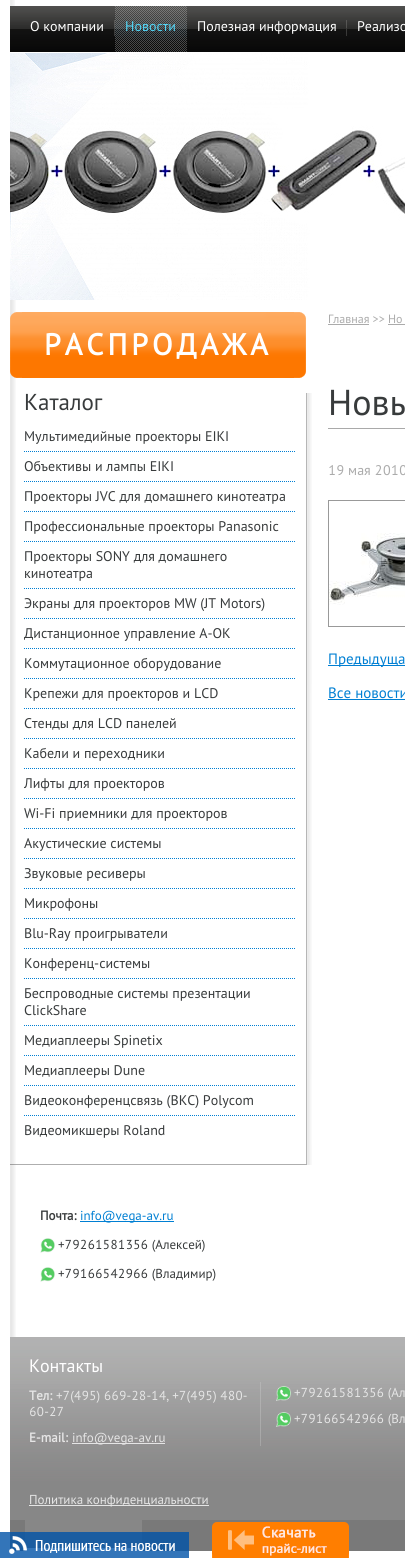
import math
import cairo


def use_color(cr, r, g, b):
  cr.set_source_rgb(r / 255, g / 255, b / 255)

def text(cr, x, y, s, family, size, color, bold=False, italic=False):
  cr.select_font_face(family, cairo.FONT_SLANT_ITALIC if italic else cairo.FONT_SLANT_NORMAL, cairo.FONT_WEIGHT_BOLD if bold else cairo.FONT_WEIGHT_NORMAL)
  cr.set_font_size(size)
  use_color(cr, *color)
  cr.move_to(x, y)
  cr.show_text(s)

def spaced_text(cr, x, y, s, letter, word):
  cr.move_to(x, y)
  for ch in s:
    cr.show_text(ch)
    cr.rel_move_to(letter + word * (ch == ' '), 0)

def box(cr, x, y, w, h, *color):
  use_color(cr, *color)
  cr.rectangle(x, y, w, h)
  cr.fill()

def picture(cr, path, x, y, w, h):
  cr.save()
  cr.set_source_surface(cairo.ImageSurface.create_from_png(path), x, y)
  cr.rectangle(x, y, w, h)
  cr.fill()
  cr.restore()

def draw(cr):
  use_color(cr, 255, 255, 255)
  cr.paint()
  picture(cr, "img_01.png", 10, 0, 5, 6)
  picture(cr, "img_02.png", 10, 6, 395, 46)
  picture(cr, "img_03.png", 114, 20, 1, 16)
  picture(cr, "img_04.png", 115, 6, 72, 46)
  picture(cr, "img_03.png", 346, 20, 1, 16)
  picture(cr, "img_05.png", 10, 53, 395, 247)
  picture(cr, "img_06.png", 10, 300, 6, 1037)
  picture(cr, "img_07.png", 10, 312, 296, 66)
  picture(cr, "img_08.png", 306, 393, 6, 772)
  picture(cr, "img_09.png", 10, 1164, 297, 1)
  cr.new_path()
  cr.move_to(24, 451.5)
  cr.line_to(296, 451.5)
  use_color(cr, 0, 127, 211)
  cr.set_line_width(1)
  cr.set_dash([1, 1])
  cr.stroke()
  cr.new_path()
  cr.move_to(24, 481.5)
  cr.line_to(296, 481.5)
  cr.stroke()
  cr.new_path()
  cr.move_to(24, 511.5)
  cr.line_to(296, 511.5)
  cr.stroke()
  cr.new_path()
  cr.move_to(24, 541.5)
  cr.line_to(296, 541.5)
  cr.stroke()
  cr.new_path()
  cr.move_to(24, 588.5)
  cr.line_to(296, 588.5)
  cr.stroke()
  cr.new_path()
  cr.move_to(24, 618.5)
  cr.line_to(296, 618.5)
  cr.stroke()
  cr.new_path()
  cr.move_to(24, 648.5)
  cr.line_to(296, 648.5)
  cr.stroke()
  cr.new_path()
  cr.move_to(24, 678.5)
  cr.line_to(296, 678.5)
  cr.stroke()
  cr.new_path()
  cr.move_to(24, 708.5)
  cr.line_to(296, 708.5)
  cr.stroke()
  cr.new_path()
  cr.move_to(24, 738.5)
  cr.line_to(296, 738.5)
  cr.stroke()
  cr.new_path()
  cr.move_to(24, 768.5)
  cr.line_to(296, 768.5)
  cr.stroke()
  cr.new_path()
  cr.move_to(24, 798.5)
  cr.line_to(296, 798.5)
  cr.stroke()
  cr.new_path()
  cr.move_to(24, 828.5)
  cr.line_to(296, 828.5)
  cr.stroke()
  cr.new_path()
  cr.move_to(24, 858.5)
  cr.line_to(296, 858.5)
  cr.stroke()
  cr.new_path()
  cr.move_to(24, 888.5)
  cr.line_to(296, 888.5)
  cr.stroke()
  cr.new_path()
  cr.move_to(24, 918.5)
  cr.line_to(296, 918.5)
  cr.stroke()
  cr.new_path()
  cr.move_to(24, 948.5)
  cr.line_to(296, 948.5)
  cr.stroke()
  cr.new_path()
  cr.move_to(24, 978.5)
  cr.line_to(296, 978.5)
  cr.stroke()
  cr.new_path()
  cr.move_to(24, 1025.5)
  cr.line_to(296, 1025.5)
  cr.stroke()
  cr.new_path()
  cr.move_to(24, 1055.5)
  cr.line_to(296, 1055.5)
  cr.stroke()
  cr.new_path()
  cr.move_to(24, 1085.5)
  cr.line_to(296, 1085.5)
  cr.stroke()
  cr.new_path()
  cr.move_to(24, 1115.5)
  cr.line_to(296, 1115.5)
  cr.stroke()
  box(cr, 80, 1221, 94, 1, 0, 127, 211)
  picture(cr, "img_10.png", 40, 1238, 15, 15)
  picture(cr, "img_10.png", 40, 1267, 15, 15)
  box(cr, 328, 324, 41, 1, 171, 171, 171)
  box(cr, 388, 324, 17, 1, 171, 171, 171)
  box(cr, 328, 428, 77, 1, 169, 169, 169)
  cr.rectangle(328.5, 500.5, 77, 126)
  use_color(cr, 153, 153, 153)
  cr.set_dash([])
  cr.stroke()
  picture(cr, "img_11.png", 329, 533, 76, 72)
  box(cr, 328, 665, 77, 1, 0, 127, 211)
  box(cr, 328, 699, 77, 1, 0, 127, 211)
  picture(cr, "img_12.png", 10, 1337, 395, 211)
  picture(cr, "img_13.png", 260, 1382, 1, 64)
  box(cr, 72, 1443, 93, 1, 229, 229, 229)
  box(cr, 29, 1505, 180, 1, 229, 229, 229)
  picture(cr, "img_14.png", 276, 1386, 15, 15)
  picture(cr, "img_15.png", 276, 1412, 15, 15)
  box(cr, 10, 1520, 15, 31, 121, 121, 121)
  box(cr, 142, 1520, 263, 31, 121, 121, 121)
  picture(cr, "img_16.png", 0, 1532, 189, 26)
  picture(cr, "img_17.png", 212, 1522, 137, 36)
  text(cr, 30, 31, "О компании", "PT Sans", 14, (255, 255, 255))
  text(cr, 125, 31, "Новости", "PT Sans", 14, (83, 215, 248))
  text(cr, 197, 31, "Полезная информация", "PT Sans", 14, (255, 255, 255))
  text(cr, 357, 31, "Реализо", "PT Sans", 14, (255, 255, 255))
  cr.select_font_face("PT Sans", cairo.FONT_SLANT_NORMAL, cairo.FONT_WEIGHT_BOLD)
  cr.set_font_size(30)
  spaced_text(cr, 44, 355, "РАСПРОДАЖА", 4, 0)
  text(cr, 24, 410, "Каталог", "PT Sans", 23, (56, 59, 60))
  text(cr, 24, 441, "Мультимедийные проекторы EIKI", "PT Sans", 14, (56, 59, 60))
  text(cr, 24, 471, "Объективы и лампы EIKI", "PT Sans", 14, (56, 59, 60))
  text(cr, 24, 501, "Проекторы JVC для домашнего кинотеатра", "PT Sans", 14, (56, 59, 60))
  text(cr, 24, 531, "Профессиональные проекторы Panasonic", "PT Sans", 14, (56, 59, 60))
  text(cr, 24, 561, "Проекторы SONY для домашнего", "PT Sans", 14, (56, 59, 60))
  text(cr, 24, 578, "кинотеатра", "PT Sans", 14, (56, 59, 60))
  text(cr, 24, 608, "Экраны для проекторов MW (JT Motors)", "PT Sans", 14, (56, 59, 60))
  text(cr, 24, 638, "Дистанционное управление A-OK", "PT Sans", 14, (56, 59, 60))
  text(cr, 24, 668, "Коммутационное оборудование", "PT Sans", 14, (56, 59, 60))
  text(cr, 24, 698, "Крепежи для проекторов и LCD", "PT Sans", 14, (56, 59, 60))
  text(cr, 24, 728, "Стенды для LCD панелей", "PT Sans", 14, (56, 59, 60))
  text(cr, 24, 758, "Кабели и переходники", "PT Sans", 14, (56, 59, 60))
  text(cr, 24, 788, "Лифты для проекторов", "PT Sans", 14, (56, 59, 60))
  text(cr, 24, 818, "Wi-Fi приемники для проекторов", "PT Sans", 14, (56, 59, 60))
  text(cr, 24, 848, "Акустические системы", "PT Sans", 14, (56, 59, 60))
  text(cr, 24, 878, "Звуковые ресиверы", "PT Sans", 14, (56, 59, 60))
  text(cr, 24, 908, "Микрофоны", "PT Sans", 14, (56, 59, 60))
  text(cr, 24, 938, "Blu-Ray проигрыватели", "PT Sans", 14, (56, 59, 60))
  text(cr, 24, 968, "Конференц-системы", "PT Sans", 14, (56, 59, 60))
  text(cr, 24, 998, "Беспроводные системы презентации", "PT Sans", 14, (56, 59, 60))
  text(cr, 24, 1015, "ClickShare", "PT Sans", 14, (56, 59, 60))
  text(cr, 24, 1045, "Медиаплееры Spinetix", "PT Sans", 14, (56, 59, 60))
  text(cr, 24, 1075, "Медиаплееры Dune", "PT Sans", 14, (56, 59, 60))
  text(cr, 24, 1105, "Видеоконференцсвязь (ВКС) Polycom", "PT Sans", 14, (56, 59, 60))
  text(cr, 24, 1135, "Видеомикшеры Roland", "PT Sans", 14, (56, 59, 60))
  text(cr, 40, 1220, "Почта:", "PT Sans", 13, (56, 59, 60), bold=True)
  text(cr, 80, 1220, "info@vega-av.ru", "PT Sans", 13, (0, 127, 211))
  text(cr, 58, 1249, "+79261581356 (Алексей)", "PT Sans", 13, (56, 59, 60))
  text(cr, 58, 1278, "+79166542966 (Владимир)", "PT Sans", 13, (56, 59, 60))
  text(cr, 328, 323, "Главная >> Но", "PT Sans", 12, (171, 171, 171))
  text(cr, 328, 415, "Новы", "PT Sans", 36, (56, 59, 60))
  text(cr, 328, 475, "19 мая 2010", "PT Sans", 14, (171, 171, 171))
  text(cr, 328, 664, "Предыдуща", "PT Sans", 15, (0, 127, 211))
  text(cr, 328, 698, "Все новости", "PT Sans", 15, (0, 127, 211))
  text(cr, 29, 1372, "Контакты", "PT Sans", 18, (255, 255, 255))
  text(cr, 29, 1400, "Тел:", "PT Sans", 13, (229, 229, 229), bold=True)
  text(cr, 56, 1400, "+7(495) 669-28-14, +7(495) 480-", "PT Sans", 13, (229, 229, 229))
  text(cr, 29, 1416, "60-27", "PT Sans", 13, (229, 229, 229))
  text(cr, 29, 1442, "E-mail:", "PT Sans", 13, (229, 229, 229), bold=True)
  text(cr, 72, 1442, "info@vega-av.ru", "PT Sans", 13, (229, 229, 229))
  text(cr, 29, 1504, "Политика конфиденциальности", "PT Sans", 13, (229, 229, 229))
  text(cr, 294, 1397, "+79261581356 (Ал", "PT Sans", 13, (229, 229, 229))
  text(cr, 294, 1423, "+79166542966 (Вл", "PT Sans", 13, (229, 229, 229))


surface = cairo.ImageSurface(cairo.FORMAT_RGB24, 405, 1558)
cr = cairo.Context(surface)
options = cairo.FontOptions()
options.set_hint_metrics(cairo.HINT_METRICS_OFF)
options.set_hint_style(cairo.HINT_STYLE_NONE)
cr.set_font_options(options)
cr.set_miter_limit(4)
draw(cr)
surface.write_to_png("out.png")
